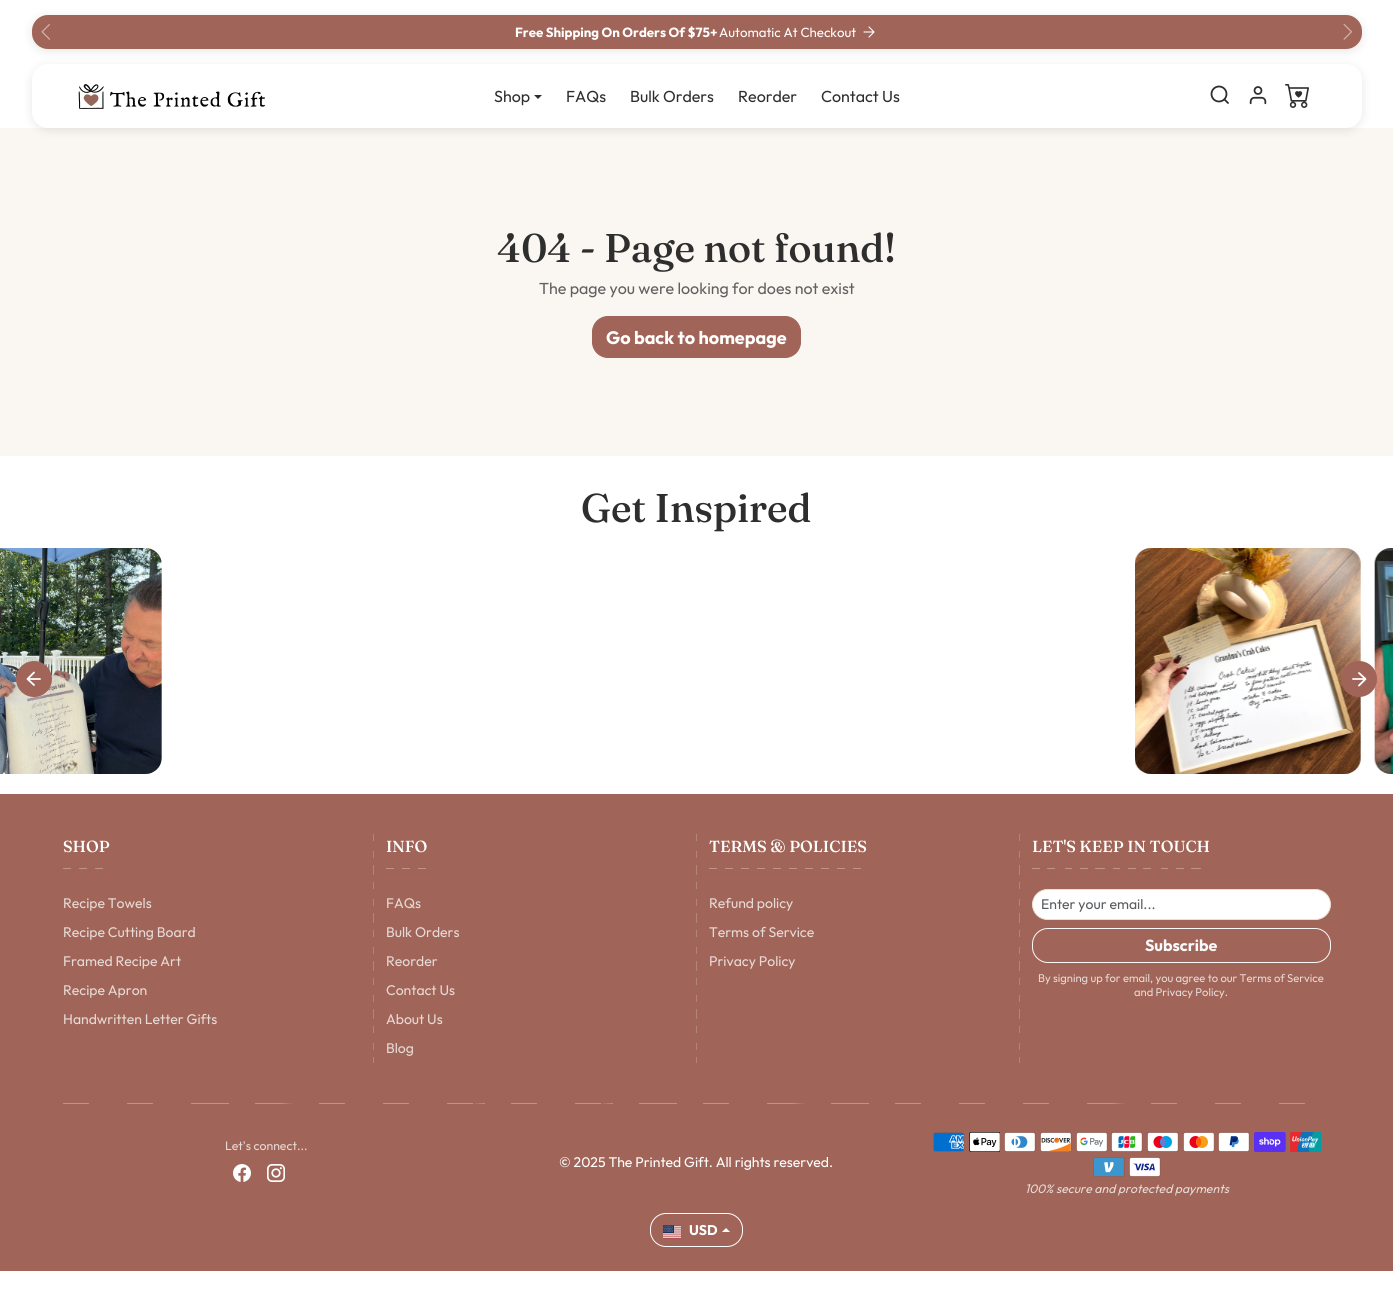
import math
import cairo


def use_color(cr, r, g, b):
  cr.set_source_rgb(r / 255, g / 255, b / 255)

def text(cr, x, y, s, family, size, color, bold=False, italic=False):
  cr.select_font_face(family, cairo.FONT_SLANT_ITALIC if italic else cairo.FONT_SLANT_NORMAL, cairo.FONT_WEIGHT_BOLD if bold else cairo.FONT_WEIGHT_NORMAL)
  cr.set_font_size(size)
  use_color(cr, *color)
  cr.move_to(x, y)
  cr.show_text(s)

def box(cr, x, y, w, h, *color):
  use_color(cr, *color)
  cr.rectangle(x, y, w, h)
  cr.fill()

def round_rect(cr, x, y, w, h, r):
  cr.new_sub_path()
  for i, (u, v) in enumerate([(x + w - r, y + h - r), (x + r, y + h - r), (x + r, y + r), (x + w - r, y + r)]):
    cr.arc(u, v, r, i * math.pi / 2, (i + 1) * math.pi / 2)
  cr.close_path()

def shadow(cr, x, y, w, h, r, blur, alpha):
  cr.push_group_with_content(cairo.CONTENT_ALPHA)
  cr.set_operator(cairo.OPERATOR_SOURCE)
  for i in range(15, -16, -2):
    e = blur * i / 6
    if min(w, h) + 2 * e > 0:
      cr.set_source_rgba(0, 0, 0, alpha * math.erfc((i - 1) / 8.5) / 2)
      round_rect(cr, x - e, y - e, w + 2 * e, h + 2 * e, max(0, min(r + e + blur * .6, min(w, h) / 2 + e)))
      cr.fill()
  cr.mask(cr.pop_group())

def picture(cr, path, x, y, w, h):
  cr.save()
  cr.set_source_surface(cairo.ImageSurface.create_from_png(path), x, y)
  cr.rectangle(x, y, w, h)
  cr.fill()
  cr.restore()

def draw(cr):
  use_color(cr, 255, 255, 255)
  cr.paint()
  use_color(cr, 0, 0, 0)
  shadow(cr, 32, 17, 1330, 34, 16, 5, 0.1)
  use_color(cr, 160, 101, 88)
  round_rect(cr, 32, 15, 1330, 34, 16)
  cr.fill()
  picture(cr, "img_01.png", 41, 23, 9, 17)
  cr.new_path()
  cr.move_to(864, 32)
  cr.line_to(873.5, 32)
  cr.move_to(869, 27)
  cr.line_to(874, 32)
  cr.line_to(869, 37)
  use_color(cr, 255, 255, 255)
  cr.set_line_width(1.1)
  cr.set_line_cap(cairo.LINE_CAP_ROUND)
  cr.set_line_join(cairo.LINE_JOIN_ROUND)
  cr.stroke()
  picture(cr, "img_02.png", 1343, 24, 9, 16)
  box(cr, 0, 128, 1393, 328, 250, 247, 242)
  use_color(cr, 0, 0, 0)
  shadow(cr, 32, 66, 1330, 64, 16, 5, 0.1)
  use_color(cr, 255, 255, 255)
  round_rect(cr, 32, 64, 1330, 64, 16)
  cr.fill()
  picture(cr, "img_03.png", 78, 84, 187, 25)
  use_color(cr, 46, 46, 46)
  cr.new_path()
  cr.move_to(534, 95)
  cr.line_to(542, 95)
  cr.line_to(538, 99)
  cr.close_path()
  cr.fill()
  cr.arc(1219, 94, 7.5, 0, 2 * math.pi)
  cr.set_line_width(1.8)
  cr.set_line_cap(cairo.LINE_CAP_BUTT)
  cr.set_line_join(cairo.LINE_JOIN_MITER)
  cr.stroke()
  cr.new_path()
  cr.move_to(1228, 103)
  cr.line_to(1224.5, 99.5)
  cr.set_line_cap(cairo.LINE_CAP_ROUND)
  cr.set_line_join(cairo.LINE_JOIN_ROUND)
  cr.stroke()
  picture(cr, "img_04.png", 1249, 86, 18, 19)
  picture(cr, "img_05.png", 1285, 84, 24, 24)
  use_color(cr, 160, 101, 88)
  round_rect(cr, 592.5, 316.5, 208, 41, 15.5)
  cr.fill_preserve()
  cr.set_line_width(1)
  cr.set_line_cap(cairo.LINE_CAP_BUTT)
  cr.set_line_join(cairo.LINE_JOIN_MITER)
  cr.stroke()
  picture(cr, "img_06.png", 0, 548, 162, 226)
  picture(cr, "img_07.png", 1135, 548, 226, 226)
  picture(cr, "img_08.png", 1374, 548, 19, 226)
  cr.arc(34, 679, 18, 0, 2 * math.pi)
  cr.fill()
  cr.new_path()
  cr.move_to(40, 679)
  cr.line_to(28.5, 679)
  cr.move_to(34, 672.5)
  cr.line_to(27.5, 679)
  cr.line_to(34, 685)
  use_color(cr, 255, 255, 255)
  cr.set_line_width(1.8)
  cr.set_line_cap(cairo.LINE_CAP_ROUND)
  cr.set_line_join(cairo.LINE_JOIN_ROUND)
  cr.stroke()
  use_color(cr, 160, 101, 88)
  cr.new_path()
  cr.move_to(1359, 697)
  cr.curve_to(1349, 697, 1341, 689, 1341, 679)
  cr.curve_to(1341, 669, 1349, 661, 1359, 661)
  cr.curve_to(1369, 661, 1377, 669, 1377, 679)
  cr.curve_to(1377, 689, 1369, 697, 1359, 697)
  cr.close_path()
  cr.fill()
  cr.new_path()
  cr.move_to(1353, 679)
  cr.line_to(1364.5, 679)
  cr.move_to(1359, 685.5)
  cr.line_to(1365.5, 679)
  cr.line_to(1359, 673)
  use_color(cr, 255, 255, 255)
  cr.stroke()
  box(cr, 0, 794, 1393, 477, 160, 101, 88)
  gradient = cairo.LinearGradient(63, 869, 111, 869)
  gradient.add_color_stop_rgba(0, 0.741, 0.576, 0.541, 1)
  gradient.add_color_stop_rgba(0.17, 0.741, 0.576, 0.541, 1)
  gradient.add_color_stop_rgba(0.17, 0.627, 0.396, 0.345, 1)
  gradient.add_color_stop_rgba(0.33, 0.627, 0.396, 0.345, 1)
  gradient.add_color_stop_rgba(0.33, 0.741, 0.576, 0.541, 1)
  gradient.add_color_stop_rgba(0.5, 0.741, 0.576, 0.541, 1)
  gradient.add_color_stop_rgba(0.5, 0.627, 0.396, 0.345, 1)
  gradient.add_color_stop_rgba(0.67, 0.627, 0.396, 0.345, 1)
  gradient.add_color_stop_rgba(0.67, 0.741, 0.576, 0.541, 1)
  gradient.add_color_stop_rgba(0.83, 0.741, 0.576, 0.541, 1)
  gradient.add_color_stop_rgba(0.83, 0.627, 0.396, 0.345, 1)
  gradient.add_color_stop_rgba(1, 0.627, 0.396, 0.345, 1)
  cr.set_source(gradient)
  cr.rectangle(63, 868, 46, 1)
  cr.fill()
  gradient = cairo.LinearGradient(374, 834, 374, 1074)
  gradient.add_color_stop_rgba(0, 0.702, 0.518, 0.475, 1)
  gradient.add_color_stop_rgba(0.03, 0.702, 0.518, 0.475, 1)
  gradient.add_color_stop_rgba(0.03, 0.627, 0.396, 0.345, 1)
  gradient.add_color_stop_rgba(0.07, 0.627, 0.396, 0.345, 1)
  gradient.add_color_stop_rgba(0.07, 0.702, 0.518, 0.475, 1)
  gradient.add_color_stop_rgba(0.1, 0.702, 0.518, 0.475, 1)
  gradient.add_color_stop_rgba(0.1, 0.627, 0.396, 0.345, 1)
  gradient.add_color_stop_rgba(0.13, 0.627, 0.396, 0.345, 1)
  gradient.add_color_stop_rgba(0.13, 0.702, 0.518, 0.475, 1)
  gradient.add_color_stop_rgba(0.17, 0.702, 0.518, 0.475, 1)
  gradient.add_color_stop_rgba(0.17, 0.627, 0.396, 0.345, 1)
  gradient.add_color_stop_rgba(0.2, 0.627, 0.396, 0.345, 1)
  gradient.add_color_stop_rgba(0.2, 0.702, 0.518, 0.475, 1)
  gradient.add_color_stop_rgba(0.23, 0.702, 0.518, 0.475, 1)
  gradient.add_color_stop_rgba(0.23, 0.627, 0.396, 0.345, 1)
  gradient.add_color_stop_rgba(0.27, 0.627, 0.396, 0.345, 1)
  gradient.add_color_stop_rgba(0.27, 0.702, 0.518, 0.475, 1)
  gradient.add_color_stop_rgba(0.3, 0.702, 0.518, 0.475, 1)
  gradient.add_color_stop_rgba(0.3, 0.627, 0.396, 0.345, 1)
  gradient.add_color_stop_rgba(0.33, 0.627, 0.396, 0.345, 1)
  gradient.add_color_stop_rgba(0.33, 0.702, 0.518, 0.475, 1)
  gradient.add_color_stop_rgba(0.37, 0.702, 0.518, 0.475, 1)
  gradient.add_color_stop_rgba(0.37, 0.627, 0.396, 0.345, 1)
  gradient.add_color_stop_rgba(0.4, 0.627, 0.396, 0.345, 1)
  gradient.add_color_stop_rgba(0.4, 0.702, 0.518, 0.475, 1)
  gradient.add_color_stop_rgba(0.43, 0.702, 0.518, 0.475, 1)
  gradient.add_color_stop_rgba(0.43, 0.627, 0.396, 0.345, 1)
  gradient.add_color_stop_rgba(0.47, 0.627, 0.396, 0.345, 1)
  gradient.add_color_stop_rgba(0.47, 0.702, 0.518, 0.475, 1)
  gradient.add_color_stop_rgba(0.5, 0.702, 0.518, 0.475, 1)
  gradient.add_color_stop_rgba(0.5, 0.627, 0.396, 0.345, 1)
  gradient.add_color_stop_rgba(0.53, 0.627, 0.396, 0.345, 1)
  gradient.add_color_stop_rgba(0.53, 0.702, 0.518, 0.475, 1)
  gradient.add_color_stop_rgba(0.57, 0.702, 0.518, 0.475, 1)
  gradient.add_color_stop_rgba(0.57, 0.627, 0.396, 0.345, 1)
  gradient.add_color_stop_rgba(0.6, 0.627, 0.396, 0.345, 1)
  gradient.add_color_stop_rgba(0.6, 0.702, 0.518, 0.475, 1)
  gradient.add_color_stop_rgba(0.63, 0.702, 0.518, 0.475, 1)
  gradient.add_color_stop_rgba(0.63, 0.627, 0.396, 0.345, 1)
  gradient.add_color_stop_rgba(0.67, 0.627, 0.396, 0.345, 1)
  gradient.add_color_stop_rgba(0.67, 0.702, 0.518, 0.475, 1)
  gradient.add_color_stop_rgba(0.7, 0.702, 0.518, 0.475, 1)
  gradient.add_color_stop_rgba(0.7, 0.627, 0.396, 0.345, 1)
  gradient.add_color_stop_rgba(0.73, 0.627, 0.396, 0.345, 1)
  gradient.add_color_stop_rgba(0.73, 0.702, 0.518, 0.475, 1)
  gradient.add_color_stop_rgba(0.77, 0.702, 0.518, 0.475, 1)
  gradient.add_color_stop_rgba(0.77, 0.627, 0.396, 0.345, 1)
  gradient.add_color_stop_rgba(0.8, 0.627, 0.396, 0.345, 1)
  gradient.add_color_stop_rgba(0.8, 0.702, 0.518, 0.475, 1)
  gradient.add_color_stop_rgba(0.83, 0.702, 0.518, 0.475, 1)
  gradient.add_color_stop_rgba(0.83, 0.627, 0.396, 0.345, 1)
  gradient.add_color_stop_rgba(0.87, 0.627, 0.396, 0.345, 1)
  gradient.add_color_stop_rgba(0.87, 0.702, 0.518, 0.475, 1)
  gradient.add_color_stop_rgba(0.9, 0.702, 0.518, 0.475, 1)
  gradient.add_color_stop_rgba(0.9, 0.627, 0.396, 0.345, 1)
  gradient.add_color_stop_rgba(0.93, 0.627, 0.396, 0.345, 1)
  gradient.add_color_stop_rgba(0.93, 0.702, 0.518, 0.475, 1)
  gradient.add_color_stop_rgba(0.97, 0.702, 0.518, 0.475, 1)
  gradient.add_color_stop_rgba(0.97, 0.627, 0.396, 0.345, 1)
  gradient.add_color_stop_rgba(1, 0.627, 0.396, 0.345, 1)
  cr.set_source(gradient)
  cr.rectangle(373, 834, 1, 229)
  cr.fill()
  gradient = cairo.LinearGradient(386, 869, 434, 869)
  gradient.add_color_stop_rgba(0, 0.741, 0.576, 0.541, 1)
  gradient.add_color_stop_rgba(0.17, 0.741, 0.576, 0.541, 1)
  gradient.add_color_stop_rgba(0.17, 0.627, 0.396, 0.345, 1)
  gradient.add_color_stop_rgba(0.33, 0.627, 0.396, 0.345, 1)
  gradient.add_color_stop_rgba(0.33, 0.741, 0.576, 0.541, 1)
  gradient.add_color_stop_rgba(0.5, 0.741, 0.576, 0.541, 1)
  gradient.add_color_stop_rgba(0.5, 0.627, 0.396, 0.345, 1)
  gradient.add_color_stop_rgba(0.67, 0.627, 0.396, 0.345, 1)
  gradient.add_color_stop_rgba(0.67, 0.741, 0.576, 0.541, 1)
  gradient.add_color_stop_rgba(0.83, 0.741, 0.576, 0.541, 1)
  gradient.add_color_stop_rgba(0.83, 0.627, 0.396, 0.345, 1)
  gradient.add_color_stop_rgba(1, 0.627, 0.396, 0.345, 1)
  cr.set_source(gradient)
  cr.rectangle(386, 868, 41, 1)
  cr.fill()
  gradient = cairo.LinearGradient(697, 834, 697, 1074)
  gradient.add_color_stop_rgba(0, 0.702, 0.518, 0.475, 1)
  gradient.add_color_stop_rgba(0.03, 0.702, 0.518, 0.475, 1)
  gradient.add_color_stop_rgba(0.03, 0.627, 0.396, 0.345, 1)
  gradient.add_color_stop_rgba(0.07, 0.627, 0.396, 0.345, 1)
  gradient.add_color_stop_rgba(0.07, 0.702, 0.518, 0.475, 1)
  gradient.add_color_stop_rgba(0.1, 0.702, 0.518, 0.475, 1)
  gradient.add_color_stop_rgba(0.1, 0.627, 0.396, 0.345, 1)
  gradient.add_color_stop_rgba(0.13, 0.627, 0.396, 0.345, 1)
  gradient.add_color_stop_rgba(0.13, 0.702, 0.518, 0.475, 1)
  gradient.add_color_stop_rgba(0.17, 0.702, 0.518, 0.475, 1)
  gradient.add_color_stop_rgba(0.17, 0.627, 0.396, 0.345, 1)
  gradient.add_color_stop_rgba(0.2, 0.627, 0.396, 0.345, 1)
  gradient.add_color_stop_rgba(0.2, 0.702, 0.518, 0.475, 1)
  gradient.add_color_stop_rgba(0.23, 0.702, 0.518, 0.475, 1)
  gradient.add_color_stop_rgba(0.23, 0.627, 0.396, 0.345, 1)
  gradient.add_color_stop_rgba(0.27, 0.627, 0.396, 0.345, 1)
  gradient.add_color_stop_rgba(0.27, 0.702, 0.518, 0.475, 1)
  gradient.add_color_stop_rgba(0.3, 0.702, 0.518, 0.475, 1)
  gradient.add_color_stop_rgba(0.3, 0.627, 0.396, 0.345, 1)
  gradient.add_color_stop_rgba(0.33, 0.627, 0.396, 0.345, 1)
  gradient.add_color_stop_rgba(0.33, 0.702, 0.518, 0.475, 1)
  gradient.add_color_stop_rgba(0.37, 0.702, 0.518, 0.475, 1)
  gradient.add_color_stop_rgba(0.37, 0.627, 0.396, 0.345, 1)
  gradient.add_color_stop_rgba(0.4, 0.627, 0.396, 0.345, 1)
  gradient.add_color_stop_rgba(0.4, 0.702, 0.518, 0.475, 1)
  gradient.add_color_stop_rgba(0.43, 0.702, 0.518, 0.475, 1)
  gradient.add_color_stop_rgba(0.43, 0.627, 0.396, 0.345, 1)
  gradient.add_color_stop_rgba(0.47, 0.627, 0.396, 0.345, 1)
  gradient.add_color_stop_rgba(0.47, 0.702, 0.518, 0.475, 1)
  gradient.add_color_stop_rgba(0.5, 0.702, 0.518, 0.475, 1)
  gradient.add_color_stop_rgba(0.5, 0.627, 0.396, 0.345, 1)
  gradient.add_color_stop_rgba(0.53, 0.627, 0.396, 0.345, 1)
  gradient.add_color_stop_rgba(0.53, 0.702, 0.518, 0.475, 1)
  gradient.add_color_stop_rgba(0.57, 0.702, 0.518, 0.475, 1)
  gradient.add_color_stop_rgba(0.57, 0.627, 0.396, 0.345, 1)
  gradient.add_color_stop_rgba(0.6, 0.627, 0.396, 0.345, 1)
  gradient.add_color_stop_rgba(0.6, 0.702, 0.518, 0.475, 1)
  gradient.add_color_stop_rgba(0.63, 0.702, 0.518, 0.475, 1)
  gradient.add_color_stop_rgba(0.63, 0.627, 0.396, 0.345, 1)
  gradient.add_color_stop_rgba(0.67, 0.627, 0.396, 0.345, 1)
  gradient.add_color_stop_rgba(0.67, 0.702, 0.518, 0.475, 1)
  gradient.add_color_stop_rgba(0.7, 0.702, 0.518, 0.475, 1)
  gradient.add_color_stop_rgba(0.7, 0.627, 0.396, 0.345, 1)
  gradient.add_color_stop_rgba(0.73, 0.627, 0.396, 0.345, 1)
  gradient.add_color_stop_rgba(0.73, 0.702, 0.518, 0.475, 1)
  gradient.add_color_stop_rgba(0.77, 0.702, 0.518, 0.475, 1)
  gradient.add_color_stop_rgba(0.77, 0.627, 0.396, 0.345, 1)
  gradient.add_color_stop_rgba(0.8, 0.627, 0.396, 0.345, 1)
  gradient.add_color_stop_rgba(0.8, 0.702, 0.518, 0.475, 1)
  gradient.add_color_stop_rgba(0.83, 0.702, 0.518, 0.475, 1)
  gradient.add_color_stop_rgba(0.83, 0.627, 0.396, 0.345, 1)
  gradient.add_color_stop_rgba(0.87, 0.627, 0.396, 0.345, 1)
  gradient.add_color_stop_rgba(0.87, 0.702, 0.518, 0.475, 1)
  gradient.add_color_stop_rgba(0.9, 0.702, 0.518, 0.475, 1)
  gradient.add_color_stop_rgba(0.9, 0.627, 0.396, 0.345, 1)
  gradient.add_color_stop_rgba(0.93, 0.627, 0.396, 0.345, 1)
  gradient.add_color_stop_rgba(0.93, 0.702, 0.518, 0.475, 1)
  gradient.add_color_stop_rgba(0.97, 0.702, 0.518, 0.475, 1)
  gradient.add_color_stop_rgba(0.97, 0.627, 0.396, 0.345, 1)
  gradient.add_color_stop_rgba(1, 0.627, 0.396, 0.345, 1)
  cr.set_source(gradient)
  cr.rectangle(696, 834, 1, 229)
  cr.fill()
  gradient = cairo.LinearGradient(709, 869, 869, 869)
  gradient.add_color_stop_rgba(0, 0.741, 0.576, 0.541, 1)
  gradient.add_color_stop_rgba(0.05, 0.741, 0.576, 0.541, 1)
  gradient.add_color_stop_rgba(0.05, 0.627, 0.396, 0.345, 1)
  gradient.add_color_stop_rgba(0.1, 0.627, 0.396, 0.345, 1)
  gradient.add_color_stop_rgba(0.1, 0.741, 0.576, 0.541, 1)
  gradient.add_color_stop_rgba(0.15, 0.741, 0.576, 0.541, 1)
  gradient.add_color_stop_rgba(0.15, 0.627, 0.396, 0.345, 1)
  gradient.add_color_stop_rgba(0.2, 0.627, 0.396, 0.345, 1)
  gradient.add_color_stop_rgba(0.2, 0.741, 0.576, 0.541, 1)
  gradient.add_color_stop_rgba(0.25, 0.741, 0.576, 0.541, 1)
  gradient.add_color_stop_rgba(0.25, 0.627, 0.396, 0.345, 1)
  gradient.add_color_stop_rgba(0.3, 0.627, 0.396, 0.345, 1)
  gradient.add_color_stop_rgba(0.3, 0.741, 0.576, 0.541, 1)
  gradient.add_color_stop_rgba(0.35, 0.741, 0.576, 0.541, 1)
  gradient.add_color_stop_rgba(0.35, 0.627, 0.396, 0.345, 1)
  gradient.add_color_stop_rgba(0.4, 0.627, 0.396, 0.345, 1)
  gradient.add_color_stop_rgba(0.4, 0.741, 0.576, 0.541, 1)
  gradient.add_color_stop_rgba(0.45, 0.741, 0.576, 0.541, 1)
  gradient.add_color_stop_rgba(0.45, 0.627, 0.396, 0.345, 1)
  gradient.add_color_stop_rgba(0.5, 0.627, 0.396, 0.345, 1)
  gradient.add_color_stop_rgba(0.5, 0.741, 0.576, 0.541, 1)
  gradient.add_color_stop_rgba(0.55, 0.741, 0.576, 0.541, 1)
  gradient.add_color_stop_rgba(0.55, 0.627, 0.396, 0.345, 1)
  gradient.add_color_stop_rgba(0.6, 0.627, 0.396, 0.345, 1)
  gradient.add_color_stop_rgba(0.6, 0.741, 0.576, 0.541, 1)
  gradient.add_color_stop_rgba(0.65, 0.741, 0.576, 0.541, 1)
  gradient.add_color_stop_rgba(0.65, 0.627, 0.396, 0.345, 1)
  gradient.add_color_stop_rgba(0.7, 0.627, 0.396, 0.345, 1)
  gradient.add_color_stop_rgba(0.7, 0.741, 0.576, 0.541, 1)
  gradient.add_color_stop_rgba(0.75, 0.741, 0.576, 0.541, 1)
  gradient.add_color_stop_rgba(0.75, 0.627, 0.396, 0.345, 1)
  gradient.add_color_stop_rgba(0.8, 0.627, 0.396, 0.345, 1)
  gradient.add_color_stop_rgba(0.8, 0.741, 0.576, 0.541, 1)
  gradient.add_color_stop_rgba(0.85, 0.741, 0.576, 0.541, 1)
  gradient.add_color_stop_rgba(0.85, 0.627, 0.396, 0.345, 1)
  gradient.add_color_stop_rgba(0.9, 0.627, 0.396, 0.345, 1)
  gradient.add_color_stop_rgba(0.9, 0.741, 0.576, 0.541, 1)
  gradient.add_color_stop_rgba(0.95, 0.741, 0.576, 0.541, 1)
  gradient.add_color_stop_rgba(0.95, 0.627, 0.396, 0.345, 1)
  gradient.add_color_stop_rgba(1, 0.627, 0.396, 0.345, 1)
  cr.set_source(gradient)
  cr.rectangle(709, 868, 153, 1)
  cr.fill()
  gradient = cairo.LinearGradient(1020, 834, 1020, 1074)
  gradient.add_color_stop_rgba(0, 0.702, 0.518, 0.475, 1)
  gradient.add_color_stop_rgba(0.03, 0.702, 0.518, 0.475, 1)
  gradient.add_color_stop_rgba(0.03, 0.627, 0.396, 0.345, 1)
  gradient.add_color_stop_rgba(0.07, 0.627, 0.396, 0.345, 1)
  gradient.add_color_stop_rgba(0.07, 0.702, 0.518, 0.475, 1)
  gradient.add_color_stop_rgba(0.1, 0.702, 0.518, 0.475, 1)
  gradient.add_color_stop_rgba(0.1, 0.627, 0.396, 0.345, 1)
  gradient.add_color_stop_rgba(0.13, 0.627, 0.396, 0.345, 1)
  gradient.add_color_stop_rgba(0.13, 0.702, 0.518, 0.475, 1)
  gradient.add_color_stop_rgba(0.17, 0.702, 0.518, 0.475, 1)
  gradient.add_color_stop_rgba(0.17, 0.627, 0.396, 0.345, 1)
  gradient.add_color_stop_rgba(0.2, 0.627, 0.396, 0.345, 1)
  gradient.add_color_stop_rgba(0.2, 0.702, 0.518, 0.475, 1)
  gradient.add_color_stop_rgba(0.23, 0.702, 0.518, 0.475, 1)
  gradient.add_color_stop_rgba(0.23, 0.627, 0.396, 0.345, 1)
  gradient.add_color_stop_rgba(0.27, 0.627, 0.396, 0.345, 1)
  gradient.add_color_stop_rgba(0.27, 0.702, 0.518, 0.475, 1)
  gradient.add_color_stop_rgba(0.3, 0.702, 0.518, 0.475, 1)
  gradient.add_color_stop_rgba(0.3, 0.627, 0.396, 0.345, 1)
  gradient.add_color_stop_rgba(0.33, 0.627, 0.396, 0.345, 1)
  gradient.add_color_stop_rgba(0.33, 0.702, 0.518, 0.475, 1)
  gradient.add_color_stop_rgba(0.37, 0.702, 0.518, 0.475, 1)
  gradient.add_color_stop_rgba(0.37, 0.627, 0.396, 0.345, 1)
  gradient.add_color_stop_rgba(0.4, 0.627, 0.396, 0.345, 1)
  gradient.add_color_stop_rgba(0.4, 0.702, 0.518, 0.475, 1)
  gradient.add_color_stop_rgba(0.43, 0.702, 0.518, 0.475, 1)
  gradient.add_color_stop_rgba(0.43, 0.627, 0.396, 0.345, 1)
  gradient.add_color_stop_rgba(0.47, 0.627, 0.396, 0.345, 1)
  gradient.add_color_stop_rgba(0.47, 0.702, 0.518, 0.475, 1)
  gradient.add_color_stop_rgba(0.5, 0.702, 0.518, 0.475, 1)
  gradient.add_color_stop_rgba(0.5, 0.627, 0.396, 0.345, 1)
  gradient.add_color_stop_rgba(0.53, 0.627, 0.396, 0.345, 1)
  gradient.add_color_stop_rgba(0.53, 0.702, 0.518, 0.475, 1)
  gradient.add_color_stop_rgba(0.57, 0.702, 0.518, 0.475, 1)
  gradient.add_color_stop_rgba(0.57, 0.627, 0.396, 0.345, 1)
  gradient.add_color_stop_rgba(0.6, 0.627, 0.396, 0.345, 1)
  gradient.add_color_stop_rgba(0.6, 0.702, 0.518, 0.475, 1)
  gradient.add_color_stop_rgba(0.63, 0.702, 0.518, 0.475, 1)
  gradient.add_color_stop_rgba(0.63, 0.627, 0.396, 0.345, 1)
  gradient.add_color_stop_rgba(0.67, 0.627, 0.396, 0.345, 1)
  gradient.add_color_stop_rgba(0.67, 0.702, 0.518, 0.475, 1)
  gradient.add_color_stop_rgba(0.7, 0.702, 0.518, 0.475, 1)
  gradient.add_color_stop_rgba(0.7, 0.627, 0.396, 0.345, 1)
  gradient.add_color_stop_rgba(0.73, 0.627, 0.396, 0.345, 1)
  gradient.add_color_stop_rgba(0.73, 0.702, 0.518, 0.475, 1)
  gradient.add_color_stop_rgba(0.77, 0.702, 0.518, 0.475, 1)
  gradient.add_color_stop_rgba(0.77, 0.627, 0.396, 0.345, 1)
  gradient.add_color_stop_rgba(0.8, 0.627, 0.396, 0.345, 1)
  gradient.add_color_stop_rgba(0.8, 0.702, 0.518, 0.475, 1)
  gradient.add_color_stop_rgba(0.83, 0.702, 0.518, 0.475, 1)
  gradient.add_color_stop_rgba(0.83, 0.627, 0.396, 0.345, 1)
  gradient.add_color_stop_rgba(0.87, 0.627, 0.396, 0.345, 1)
  gradient.add_color_stop_rgba(0.87, 0.702, 0.518, 0.475, 1)
  gradient.add_color_stop_rgba(0.9, 0.702, 0.518, 0.475, 1)
  gradient.add_color_stop_rgba(0.9, 0.627, 0.396, 0.345, 1)
  gradient.add_color_stop_rgba(0.93, 0.627, 0.396, 0.345, 1)
  gradient.add_color_stop_rgba(0.93, 0.702, 0.518, 0.475, 1)
  gradient.add_color_stop_rgba(0.97, 0.702, 0.518, 0.475, 1)
  gradient.add_color_stop_rgba(0.97, 0.627, 0.396, 0.345, 1)
  gradient.add_color_stop_rgba(1, 0.627, 0.396, 0.345, 1)
  cr.set_source(gradient)
  cr.rectangle(1019, 834, 1, 229)
  cr.fill()
  gradient = cairo.LinearGradient(1032, 869, 1224, 869)
  gradient.add_color_stop_rgba(0, 0.741, 0.576, 0.541, 1)
  gradient.add_color_stop_rgba(0.04, 0.741, 0.576, 0.541, 1)
  gradient.add_color_stop_rgba(0.04, 0.627, 0.396, 0.345, 1)
  gradient.add_color_stop_rgba(0.08, 0.627, 0.396, 0.345, 1)
  gradient.add_color_stop_rgba(0.08, 0.741, 0.576, 0.541, 1)
  gradient.add_color_stop_rgba(0.12, 0.741, 0.576, 0.541, 1)
  gradient.add_color_stop_rgba(0.12, 0.627, 0.396, 0.345, 1)
  gradient.add_color_stop_rgba(0.17, 0.627, 0.396, 0.345, 1)
  gradient.add_color_stop_rgba(0.17, 0.741, 0.576, 0.541, 1)
  gradient.add_color_stop_rgba(0.21, 0.741, 0.576, 0.541, 1)
  gradient.add_color_stop_rgba(0.21, 0.627, 0.396, 0.345, 1)
  gradient.add_color_stop_rgba(0.25, 0.627, 0.396, 0.345, 1)
  gradient.add_color_stop_rgba(0.25, 0.741, 0.576, 0.541, 1)
  gradient.add_color_stop_rgba(0.29, 0.741, 0.576, 0.541, 1)
  gradient.add_color_stop_rgba(0.29, 0.627, 0.396, 0.345, 1)
  gradient.add_color_stop_rgba(0.33, 0.627, 0.396, 0.345, 1)
  gradient.add_color_stop_rgba(0.33, 0.741, 0.576, 0.541, 1)
  gradient.add_color_stop_rgba(0.38, 0.741, 0.576, 0.541, 1)
  gradient.add_color_stop_rgba(0.38, 0.627, 0.396, 0.345, 1)
  gradient.add_color_stop_rgba(0.42, 0.627, 0.396, 0.345, 1)
  gradient.add_color_stop_rgba(0.42, 0.741, 0.576, 0.541, 1)
  gradient.add_color_stop_rgba(0.46, 0.741, 0.576, 0.541, 1)
  gradient.add_color_stop_rgba(0.46, 0.627, 0.396, 0.345, 1)
  gradient.add_color_stop_rgba(0.5, 0.627, 0.396, 0.345, 1)
  gradient.add_color_stop_rgba(0.5, 0.741, 0.576, 0.541, 1)
  gradient.add_color_stop_rgba(0.54, 0.741, 0.576, 0.541, 1)
  gradient.add_color_stop_rgba(0.54, 0.627, 0.396, 0.345, 1)
  gradient.add_color_stop_rgba(0.58, 0.627, 0.396, 0.345, 1)
  gradient.add_color_stop_rgba(0.58, 0.741, 0.576, 0.541, 1)
  gradient.add_color_stop_rgba(0.62, 0.741, 0.576, 0.541, 1)
  gradient.add_color_stop_rgba(0.62, 0.627, 0.396, 0.345, 1)
  gradient.add_color_stop_rgba(0.67, 0.627, 0.396, 0.345, 1)
  gradient.add_color_stop_rgba(0.67, 0.741, 0.576, 0.541, 1)
  gradient.add_color_stop_rgba(0.71, 0.741, 0.576, 0.541, 1)
  gradient.add_color_stop_rgba(0.71, 0.627, 0.396, 0.345, 1)
  gradient.add_color_stop_rgba(0.75, 0.627, 0.396, 0.345, 1)
  gradient.add_color_stop_rgba(0.75, 0.741, 0.576, 0.541, 1)
  gradient.add_color_stop_rgba(0.79, 0.741, 0.576, 0.541, 1)
  gradient.add_color_stop_rgba(0.79, 0.627, 0.396, 0.345, 1)
  gradient.add_color_stop_rgba(0.83, 0.627, 0.396, 0.345, 1)
  gradient.add_color_stop_rgba(0.83, 0.741, 0.576, 0.541, 1)
  gradient.add_color_stop_rgba(0.88, 0.741, 0.576, 0.541, 1)
  gradient.add_color_stop_rgba(0.88, 0.627, 0.396, 0.345, 1)
  gradient.add_color_stop_rgba(0.92, 0.627, 0.396, 0.345, 1)
  gradient.add_color_stop_rgba(0.92, 0.741, 0.576, 0.541, 1)
  gradient.add_color_stop_rgba(0.96, 0.741, 0.576, 0.541, 1)
  gradient.add_color_stop_rgba(0.96, 0.627, 0.396, 0.345, 1)
  gradient.add_color_stop_rgba(1, 0.627, 0.396, 0.345, 1)
  cr.set_source(gradient)
  cr.rectangle(1032, 868, 177, 1)
  cr.fill()
  use_color(cr, 255, 255, 255)
  round_rect(cr, 1032.5, 889.5, 298, 30, 15)
  cr.fill_preserve()
  use_color(cr, 236, 224, 205)
  cr.set_line_width(1)
  cr.set_line_cap(cairo.LINE_CAP_BUTT)
  cr.set_line_join(cairo.LINE_JOIN_MITER)
  cr.stroke()
  round_rect(cr, 1032.5, 928.5, 298, 34, 15.5)
  use_color(cr, 248, 249, 250)
  cr.stroke()
  gradient = cairo.LinearGradient(63, 1104, 1343, 1104)
  gradient.add_color_stop_rgba(0, 0.741, 0.576, 0.541, 1)
  gradient.add_color_stop_rgba(0.01, 0.741, 0.576, 0.541, 1)
  gradient.add_color_stop_rgba(0.01, 0.627, 0.396, 0.345, 1)
  gradient.add_color_stop_rgba(0.01, 0.741, 0.576, 0.541, 1)
  gradient.add_color_stop_rgba(0.02, 0.741, 0.576, 0.541, 1)
  gradient.add_color_stop_rgba(0.02, 0.627, 0.396, 0.345, 1)
  gradient.add_color_stop_rgba(0.03, 0.627, 0.396, 0.345, 1)
  gradient.add_color_stop_rgba(0.03, 0.741, 0.576, 0.541, 1)
  gradient.add_color_stop_rgba(0.03, 0.627, 0.396, 0.345, 1)
  gradient.add_color_stop_rgba(0.04, 0.627, 0.396, 0.345, 1)
  gradient.add_color_stop_rgba(0.04, 0.741, 0.576, 0.541, 1)
  gradient.add_color_stop_rgba(0.04, 0.627, 0.396, 0.345, 1)
  gradient.add_color_stop_rgba(0.05, 0.627, 0.396, 0.345, 1)
  gradient.add_color_stop_rgba(0.05, 0.741, 0.576, 0.541, 1)
  gradient.add_color_stop_rgba(0.06, 0.741, 0.576, 0.541, 1)
  gradient.add_color_stop_rgba(0.06, 0.627, 0.396, 0.345, 1)
  gradient.add_color_stop_rgba(0.06, 0.741, 0.576, 0.541, 1)
  gradient.add_color_stop_rgba(0.07, 0.741, 0.576, 0.541, 1)
  gradient.add_color_stop_rgba(0.07, 0.627, 0.396, 0.345, 1)
  gradient.add_color_stop_rgba(0.08, 0.627, 0.396, 0.345, 1)
  gradient.add_color_stop_rgba(0.08, 0.741, 0.576, 0.541, 1)
  gradient.add_color_stop_rgba(0.08, 0.627, 0.396, 0.345, 1)
  gradient.add_color_stop_rgba(0.09, 0.627, 0.396, 0.345, 1)
  gradient.add_color_stop_rgba(0.09, 0.741, 0.576, 0.541, 1)
  gradient.add_color_stop_rgba(0.09, 0.627, 0.396, 0.345, 1)
  gradient.add_color_stop_rgba(0.1, 0.627, 0.396, 0.345, 1)
  gradient.add_color_stop_rgba(0.1, 0.741, 0.576, 0.541, 1)
  gradient.add_color_stop_rgba(0.11, 0.741, 0.576, 0.541, 1)
  gradient.add_color_stop_rgba(0.11, 0.627, 0.396, 0.345, 1)
  gradient.add_color_stop_rgba(0.11, 0.741, 0.576, 0.541, 1)
  gradient.add_color_stop_rgba(0.12, 0.741, 0.576, 0.541, 1)
  gradient.add_color_stop_rgba(0.12, 0.627, 0.396, 0.345, 1)
  gradient.add_color_stop_rgba(0.12, 0.741, 0.576, 0.541, 1)
  gradient.add_color_stop_rgba(0.13, 0.741, 0.576, 0.541, 1)
  gradient.add_color_stop_rgba(0.13, 0.627, 0.396, 0.345, 1)
  gradient.add_color_stop_rgba(0.14, 0.627, 0.396, 0.345, 1)
  gradient.add_color_stop_rgba(0.14, 0.741, 0.576, 0.541, 1)
  gradient.add_color_stop_rgba(0.14, 0.627, 0.396, 0.345, 1)
  gradient.add_color_stop_rgba(0.15, 0.627, 0.396, 0.345, 1)
  gradient.add_color_stop_rgba(0.15, 0.741, 0.576, 0.541, 1)
  gradient.add_color_stop_rgba(0.16, 0.741, 0.576, 0.541, 1)
  gradient.add_color_stop_rgba(0.16, 0.627, 0.396, 0.345, 1)
  gradient.add_color_stop_rgba(0.16, 0.741, 0.576, 0.541, 1)
  gradient.add_color_stop_rgba(0.17, 0.741, 0.576, 0.541, 1)
  gradient.add_color_stop_rgba(0.17, 0.627, 0.396, 0.345, 1)
  gradient.add_color_stop_rgba(0.18, 0.627, 0.396, 0.345, 1)
  gradient.add_color_stop_rgba(0.17, 0.741, 0.576, 0.541, 1)
  gradient.add_color_stop_rgba(0.18, 0.741, 0.576, 0.541, 1)
  gradient.add_color_stop_rgba(0.18, 0.627, 0.396, 0.345, 1)
  gradient.add_color_stop_rgba(0.19, 0.627, 0.396, 0.345, 1)
  gradient.add_color_stop_rgba(0.19, 0.741, 0.576, 0.541, 1)
  gradient.add_color_stop_rgba(0.19, 0.627, 0.396, 0.345, 1)
  gradient.add_color_stop_rgba(0.2, 0.627, 0.396, 0.345, 1)
  gradient.add_color_stop_rgba(0.2, 0.741, 0.576, 0.541, 1)
  gradient.add_color_stop_rgba(0.21, 0.741, 0.576, 0.541, 1)
  gradient.add_color_stop_rgba(0.21, 0.627, 0.396, 0.345, 1)
  gradient.add_color_stop_rgba(0.21, 0.741, 0.576, 0.541, 1)
  gradient.add_color_stop_rgba(0.22, 0.741, 0.576, 0.541, 1)
  gradient.add_color_stop_rgba(0.22, 0.627, 0.396, 0.345, 1)
  gradient.add_color_stop_rgba(0.23, 0.627, 0.396, 0.345, 1)
  gradient.add_color_stop_rgba(0.23, 0.741, 0.576, 0.541, 1)
  gradient.add_color_stop_rgba(0.23, 0.627, 0.396, 0.345, 1)
  gradient.add_color_stop_rgba(0.24, 0.627, 0.396, 0.345, 1)
  gradient.add_color_stop_rgba(0.24, 0.741, 0.576, 0.541, 1)
  gradient.add_color_stop_rgba(0.24, 0.627, 0.396, 0.345, 1)
  gradient.add_color_stop_rgba(0.25, 0.627, 0.396, 0.345, 1)
  gradient.add_color_stop_rgba(0.25, 0.741, 0.576, 0.541, 1)
  gradient.add_color_stop_rgba(0.26, 0.741, 0.576, 0.541, 1)
  gradient.add_color_stop_rgba(0.26, 0.627, 0.396, 0.345, 1)
  gradient.add_color_stop_rgba(0.26, 0.741, 0.576, 0.541, 1)
  gradient.add_color_stop_rgba(0.27, 0.741, 0.576, 0.541, 1)
  gradient.add_color_stop_rgba(0.27, 0.627, 0.396, 0.345, 1)
  gradient.add_color_stop_rgba(0.28, 0.627, 0.396, 0.345, 1)
  gradient.add_color_stop_rgba(0.28, 0.741, 0.576, 0.541, 1)
  gradient.add_color_stop_rgba(0.28, 0.627, 0.396, 0.345, 1)
  gradient.add_color_stop_rgba(0.29, 0.627, 0.396, 0.345, 1)
  gradient.add_color_stop_rgba(0.29, 0.741, 0.576, 0.541, 1)
  gradient.add_color_stop_rgba(0.29, 0.627, 0.396, 0.345, 1)
  gradient.add_color_stop_rgba(0.3, 0.627, 0.396, 0.345, 1)
  gradient.add_color_stop_rgba(0.3, 0.741, 0.576, 0.541, 1)
  gradient.add_color_stop_rgba(0.31, 0.741, 0.576, 0.541, 1)
  gradient.add_color_stop_rgba(0.31, 0.627, 0.396, 0.345, 1)
  gradient.add_color_stop_rgba(0.31, 0.741, 0.576, 0.541, 1)
  gradient.add_color_stop_rgba(0.32, 0.741, 0.576, 0.541, 1)
  gradient.add_color_stop_rgba(0.32, 0.627, 0.396, 0.345, 1)
  gradient.add_color_stop_rgba(0.33, 0.741, 0.576, 0.541, 1)
  gradient.add_color_stop_rgba(0.33, 0.627, 0.396, 0.345, 1)
  gradient.add_color_stop_rgba(0.34, 0.627, 0.396, 0.345, 1)
  gradient.add_color_stop_rgba(0.34, 0.741, 0.576, 0.541, 1)
  gradient.add_color_stop_rgba(0.34, 0.627, 0.396, 0.345, 1)
  gradient.add_color_stop_rgba(0.35, 0.627, 0.396, 0.345, 1)
  gradient.add_color_stop_rgba(0.35, 0.741, 0.576, 0.541, 1)
  gradient.add_color_stop_rgba(0.36, 0.741, 0.576, 0.541, 1)
  gradient.add_color_stop_rgba(0.36, 0.627, 0.396, 0.345, 1)
  gradient.add_color_stop_rgba(0.36, 0.741, 0.576, 0.541, 1)
  gradient.add_color_stop_rgba(0.37, 0.741, 0.576, 0.541, 1)
  gradient.add_color_stop_rgba(0.37, 0.627, 0.396, 0.345, 1)
  gradient.add_color_stop_rgba(0.38, 0.627, 0.396, 0.345, 1)
  gradient.add_color_stop_rgba(0.38, 0.741, 0.576, 0.541, 1)
  gradient.add_color_stop_rgba(0.38, 0.627, 0.396, 0.345, 1)
  gradient.add_color_stop_rgba(0.39, 0.627, 0.396, 0.345, 1)
  gradient.add_color_stop_rgba(0.39, 0.741, 0.576, 0.541, 1)
  gradient.add_color_stop_rgba(0.39, 0.627, 0.396, 0.345, 1)
  gradient.add_color_stop_rgba(0.4, 0.627, 0.396, 0.345, 1)
  gradient.add_color_stop_rgba(0.4, 0.741, 0.576, 0.541, 1)
  gradient.add_color_stop_rgba(0.41, 0.741, 0.576, 0.541, 1)
  gradient.add_color_stop_rgba(0.41, 0.627, 0.396, 0.345, 1)
  gradient.add_color_stop_rgba(0.41, 0.741, 0.576, 0.541, 1)
  gradient.add_color_stop_rgba(0.42, 0.741, 0.576, 0.541, 1)
  gradient.add_color_stop_rgba(0.42, 0.627, 0.396, 0.345, 1)
  gradient.add_color_stop_rgba(0.43, 0.741, 0.576, 0.541, 1)
  gradient.add_color_stop_rgba(0.43, 0.627, 0.396, 0.345, 1)
  gradient.add_color_stop_rgba(0.44, 0.627, 0.396, 0.345, 1)
  gradient.add_color_stop_rgba(0.44, 0.741, 0.576, 0.541, 1)
  gradient.add_color_stop_rgba(0.44, 0.627, 0.396, 0.345, 1)
  gradient.add_color_stop_rgba(0.45, 0.627, 0.396, 0.345, 1)
  gradient.add_color_stop_rgba(0.45, 0.741, 0.576, 0.541, 1)
  gradient.add_color_stop_rgba(0.46, 0.741, 0.576, 0.541, 1)
  gradient.add_color_stop_rgba(0.46, 0.627, 0.396, 0.345, 1)
  gradient.add_color_stop_rgba(0.46, 0.741, 0.576, 0.541, 1)
  gradient.add_color_stop_rgba(0.47, 0.741, 0.576, 0.541, 1)
  gradient.add_color_stop_rgba(0.47, 0.627, 0.396, 0.345, 1)
  gradient.add_color_stop_rgba(0.47, 0.741, 0.576, 0.541, 1)
  gradient.add_color_stop_rgba(0.48, 0.741, 0.576, 0.541, 1)
  gradient.add_color_stop_rgba(0.48, 0.627, 0.396, 0.345, 1)
  gradient.add_color_stop_rgba(0.49, 0.627, 0.396, 0.345, 1)
  gradient.add_color_stop_rgba(0.49, 0.741, 0.576, 0.541, 1)
  gradient.add_color_stop_rgba(0.49, 0.627, 0.396, 0.345, 1)
  gradient.add_color_stop_rgba(0.5, 0.627, 0.396, 0.345, 1)
  gradient.add_color_stop_rgba(0.5, 0.741, 0.576, 0.541, 1)
  gradient.add_color_stop_rgba(0.51, 0.741, 0.576, 0.541, 1)
  gradient.add_color_stop_rgba(0.51, 0.627, 0.396, 0.345, 1)
  gradient.add_color_stop_rgba(0.51, 0.741, 0.576, 0.541, 1)
  gradient.add_color_stop_rgba(0.52, 0.741, 0.576, 0.541, 1)
  gradient.add_color_stop_rgba(0.52, 0.627, 0.396, 0.345, 1)
  gradient.add_color_stop_rgba(0.53, 0.627, 0.396, 0.345, 1)
  gradient.add_color_stop_rgba(0.53, 0.741, 0.576, 0.541, 1)
  gradient.add_color_stop_rgba(0.53, 0.627, 0.396, 0.345, 1)
  gradient.add_color_stop_rgba(0.54, 0.627, 0.396, 0.345, 1)
  gradient.add_color_stop_rgba(0.54, 0.741, 0.576, 0.541, 1)
  gradient.add_color_stop_rgba(0.54, 0.627, 0.396, 0.345, 1)
  gradient.add_color_stop_rgba(0.55, 0.627, 0.396, 0.345, 1)
  gradient.add_color_stop_rgba(0.55, 0.741, 0.576, 0.541, 1)
  gradient.add_color_stop_rgba(0.56, 0.741, 0.576, 0.541, 1)
  gradient.add_color_stop_rgba(0.56, 0.627, 0.396, 0.345, 1)
  gradient.add_color_stop_rgba(0.56, 0.741, 0.576, 0.541, 1)
  gradient.add_color_stop_rgba(0.57, 0.741, 0.576, 0.541, 1)
  gradient.add_color_stop_rgba(0.57, 0.627, 0.396, 0.345, 1)
  gradient.add_color_stop_rgba(0.58, 0.627, 0.396, 0.345, 1)
  gradient.add_color_stop_rgba(0.57, 0.741, 0.576, 0.541, 1)
  gradient.add_color_stop_rgba(0.58, 0.741, 0.576, 0.541, 1)
  gradient.add_color_stop_rgba(0.58, 0.627, 0.396, 0.345, 1)
  gradient.add_color_stop_rgba(0.59, 0.627, 0.396, 0.345, 1)
  gradient.add_color_stop_rgba(0.59, 0.741, 0.576, 0.541, 1)
  gradient.add_color_stop_rgba(0.59, 0.627, 0.396, 0.345, 1)
  gradient.add_color_stop_rgba(0.6, 0.627, 0.396, 0.345, 1)
  gradient.add_color_stop_rgba(0.6, 0.741, 0.576, 0.541, 1)
  gradient.add_color_stop_rgba(0.61, 0.741, 0.576, 0.541, 1)
  gradient.add_color_stop_rgba(0.61, 0.627, 0.396, 0.345, 1)
  gradient.add_color_stop_rgba(0.61, 0.741, 0.576, 0.541, 1)
  gradient.add_color_stop_rgba(0.62, 0.741, 0.576, 0.541, 1)
  gradient.add_color_stop_rgba(0.62, 0.627, 0.396, 0.345, 1)
  gradient.add_color_stop_rgba(0.62, 0.741, 0.576, 0.541, 1)
  gradient.add_color_stop_rgba(0.63, 0.741, 0.576, 0.541, 1)
  gradient.add_color_stop_rgba(0.63, 0.627, 0.396, 0.345, 1)
  gradient.add_color_stop_rgba(0.64, 0.627, 0.396, 0.345, 1)
  gradient.add_color_stop_rgba(0.64, 0.741, 0.576, 0.541, 1)
  gradient.add_color_stop_rgba(0.64, 0.627, 0.396, 0.345, 1)
  gradient.add_color_stop_rgba(0.65, 0.627, 0.396, 0.345, 1)
  gradient.add_color_stop_rgba(0.65, 0.741, 0.576, 0.541, 1)
  gradient.add_color_stop_rgba(0.66, 0.741, 0.576, 0.541, 1)
  gradient.add_color_stop_rgba(0.66, 0.627, 0.396, 0.345, 1)
  gradient.add_color_stop_rgba(0.66, 0.741, 0.576, 0.541, 1)
  gradient.add_color_stop_rgba(0.67, 0.741, 0.576, 0.541, 1)
  gradient.add_color_stop_rgba(0.67, 0.627, 0.396, 0.345, 1)
  gradient.add_color_stop_rgba(0.68, 0.627, 0.396, 0.345, 1)
  gradient.add_color_stop_rgba(0.68, 0.741, 0.576, 0.541, 1)
  gradient.add_color_stop_rgba(0.68, 0.627, 0.396, 0.345, 1)
  gradient.add_color_stop_rgba(0.69, 0.627, 0.396, 0.345, 1)
  gradient.add_color_stop_rgba(0.69, 0.741, 0.576, 0.541, 1)
  gradient.add_color_stop_rgba(0.69, 0.627, 0.396, 0.345, 1)
  gradient.add_color_stop_rgba(0.7, 0.627, 0.396, 0.345, 1)
  gradient.add_color_stop_rgba(0.7, 0.741, 0.576, 0.541, 1)
  gradient.add_color_stop_rgba(0.71, 0.741, 0.576, 0.541, 1)
  gradient.add_color_stop_rgba(0.71, 0.627, 0.396, 0.345, 1)
  gradient.add_color_stop_rgba(0.71, 0.741, 0.576, 0.541, 1)
  gradient.add_color_stop_rgba(0.72, 0.741, 0.576, 0.541, 1)
  gradient.add_color_stop_rgba(0.72, 0.627, 0.396, 0.345, 1)
  gradient.add_color_stop_rgba(0.73, 0.627, 0.396, 0.345, 1)
  gradient.add_color_stop_rgba(0.73, 0.741, 0.576, 0.541, 1)
  gradient.add_color_stop_rgba(0.73, 0.627, 0.396, 0.345, 1)
  gradient.add_color_stop_rgba(0.74, 0.627, 0.396, 0.345, 1)
  gradient.add_color_stop_rgba(0.74, 0.741, 0.576, 0.541, 1)
  gradient.add_color_stop_rgba(0.74, 0.627, 0.396, 0.345, 1)
  gradient.add_color_stop_rgba(0.75, 0.627, 0.396, 0.345, 1)
  gradient.add_color_stop_rgba(0.75, 0.741, 0.576, 0.541, 1)
  gradient.add_color_stop_rgba(0.76, 0.741, 0.576, 0.541, 1)
  gradient.add_color_stop_rgba(0.76, 0.627, 0.396, 0.345, 1)
  gradient.add_color_stop_rgba(0.76, 0.741, 0.576, 0.541, 1)
  gradient.add_color_stop_rgba(0.77, 0.741, 0.576, 0.541, 1)
  gradient.add_color_stop_rgba(0.77, 0.627, 0.396, 0.345, 1)
  gradient.add_color_stop_rgba(0.78, 0.627, 0.396, 0.345, 1)
  gradient.add_color_stop_rgba(0.78, 0.741, 0.576, 0.541, 1)
  gradient.add_color_stop_rgba(0.78, 0.627, 0.396, 0.345, 1)
  gradient.add_color_stop_rgba(0.79, 0.627, 0.396, 0.345, 1)
  gradient.add_color_stop_rgba(0.79, 0.741, 0.576, 0.541, 1)
  gradient.add_color_stop_rgba(0.79, 0.627, 0.396, 0.345, 1)
  gradient.add_color_stop_rgba(0.8, 0.627, 0.396, 0.345, 1)
  gradient.add_color_stop_rgba(0.8, 0.741, 0.576, 0.541, 1)
  gradient.add_color_stop_rgba(0.81, 0.741, 0.576, 0.541, 1)
  gradient.add_color_stop_rgba(0.81, 0.627, 0.396, 0.345, 1)
  gradient.add_color_stop_rgba(0.81, 0.741, 0.576, 0.541, 1)
  gradient.add_color_stop_rgba(0.82, 0.741, 0.576, 0.541, 1)
  gradient.add_color_stop_rgba(0.82, 0.627, 0.396, 0.345, 1)
  gradient.add_color_stop_rgba(0.83, 0.627, 0.396, 0.345, 1)
  gradient.add_color_stop_rgba(0.82, 0.741, 0.576, 0.541, 1)
  gradient.add_color_stop_rgba(0.83, 0.741, 0.576, 0.541, 1)
  gradient.add_color_stop_rgba(0.83, 0.627, 0.396, 0.345, 1)
  gradient.add_color_stop_rgba(0.84, 0.627, 0.396, 0.345, 1)
  gradient.add_color_stop_rgba(0.84, 0.741, 0.576, 0.541, 1)
  gradient.add_color_stop_rgba(0.84, 0.627, 0.396, 0.345, 1)
  gradient.add_color_stop_rgba(0.85, 0.627, 0.396, 0.345, 1)
  gradient.add_color_stop_rgba(0.85, 0.741, 0.576, 0.541, 1)
  gradient.add_color_stop_rgba(0.86, 0.741, 0.576, 0.541, 1)
  gradient.add_color_stop_rgba(0.86, 0.627, 0.396, 0.345, 1)
  gradient.add_color_stop_rgba(0.86, 0.741, 0.576, 0.541, 1)
  gradient.add_color_stop_rgba(0.87, 0.741, 0.576, 0.541, 1)
  gradient.add_color_stop_rgba(0.87, 0.627, 0.396, 0.345, 1)
  gradient.add_color_stop_rgba(0.88, 0.627, 0.396, 0.345, 1)
  gradient.add_color_stop_rgba(0.88, 0.741, 0.576, 0.541, 1)
  gradient.add_color_stop_rgba(0.88, 0.627, 0.396, 0.345, 1)
  gradient.add_color_stop_rgba(0.89, 0.627, 0.396, 0.345, 1)
  gradient.add_color_stop_rgba(0.89, 0.741, 0.576, 0.541, 1)
  gradient.add_color_stop_rgba(0.89, 0.627, 0.396, 0.345, 1)
  gradient.add_color_stop_rgba(0.9, 0.627, 0.396, 0.345, 1)
  gradient.add_color_stop_rgba(0.9, 0.741, 0.576, 0.541, 1)
  gradient.add_color_stop_rgba(0.91, 0.741, 0.576, 0.541, 1)
  gradient.add_color_stop_rgba(0.91, 0.627, 0.396, 0.345, 1)
  gradient.add_color_stop_rgba(0.91, 0.741, 0.576, 0.541, 1)
  gradient.add_color_stop_rgba(0.92, 0.741, 0.576, 0.541, 1)
  gradient.add_color_stop_rgba(0.92, 0.627, 0.396, 0.345, 1)
  gradient.add_color_stop_rgba(0.93, 0.627, 0.396, 0.345, 1)
  gradient.add_color_stop_rgba(0.93, 0.741, 0.576, 0.541, 1)
  gradient.add_color_stop_rgba(0.93, 0.627, 0.396, 0.345, 1)
  gradient.add_color_stop_rgba(0.94, 0.627, 0.396, 0.345, 1)
  gradient.add_color_stop_rgba(0.94, 0.741, 0.576, 0.541, 1)
  gradient.add_color_stop_rgba(0.94, 0.627, 0.396, 0.345, 1)
  gradient.add_color_stop_rgba(0.95, 0.627, 0.396, 0.345, 1)
  gradient.add_color_stop_rgba(0.95, 0.741, 0.576, 0.541, 1)
  gradient.add_color_stop_rgba(0.96, 0.741, 0.576, 0.541, 1)
  gradient.add_color_stop_rgba(0.96, 0.627, 0.396, 0.345, 1)
  gradient.add_color_stop_rgba(0.96, 0.741, 0.576, 0.541, 1)
  gradient.add_color_stop_rgba(0.97, 0.741, 0.576, 0.541, 1)
  gradient.add_color_stop_rgba(0.97, 0.627, 0.396, 0.345, 1)
  gradient.add_color_stop_rgba(0.98, 0.627, 0.396, 0.345, 1)
  gradient.add_color_stop_rgba(0.98, 0.741, 0.576, 0.541, 1)
  gradient.add_color_stop_rgba(0.98, 0.627, 0.396, 0.345, 1)
  gradient.add_color_stop_rgba(0.99, 0.627, 0.396, 0.345, 1)
  gradient.add_color_stop_rgba(0.99, 0.741, 0.576, 0.541, 1)
  gradient.add_color_stop_rgba(0.99, 0.627, 0.396, 0.345, 1)
  gradient.add_color_stop_rgba(1, 0.627, 0.396, 0.345, 1)
  cr.set_source(gradient)
  cr.rectangle(63, 1103, 1242, 1)
  cr.fill()
  picture(cr, "img_09.png", 233, 1164, 18, 18)
  picture(cr, "img_10.png", 267, 1164, 18, 18)
  picture(cr, "img_11.png", 933, 1132, 32, 20)
  picture(cr, "img_12.png", 969, 1132, 31, 20)
  picture(cr, "img_13.png", 1004, 1132, 32, 20)
  picture(cr, "img_14.png", 1040, 1132, 32, 20)
  picture(cr, "img_15.png", 1076, 1132, 31, 20)
  picture(cr, "img_16.png", 1111, 1132, 32, 20)
  picture(cr, "img_17.png", 1147, 1132, 32, 20)
  picture(cr, "img_18.png", 1183, 1132, 31, 20)
  picture(cr, "img_19.png", 1218, 1132, 32, 20)
  picture(cr, "img_20.png", 1254, 1132, 32, 20)
  picture(cr, "img_21.png", 1290, 1132, 31, 20)
  picture(cr, "img_22.png", 1093, 1157, 32, 20)
  picture(cr, "img_23.png", 1129, 1157, 32, 20)
  round_rect(cr, 650.5, 1213.5, 92, 33, 15.5)
  use_color(cr, 255, 255, 255)
  cr.stroke()
  picture(cr, "img_24.png", 663, 1225, 18, 14)
  cr.new_path()
  cr.move_to(730, 1232)
  cr.line_to(722, 1232)
  cr.line_to(726, 1228)
  cr.close_path()
  cr.fill()
  text(cr, 515, 37, "Free Shipping On Orders Of $75+", "Outfit", 13.25, (255, 255, 255), bold=True)
  text(cr, 719, 37, "Automatic At Checkout", "Outfit Thin", 13.25, (255, 255, 255))
  text(cr, 494, 102, "Shop", "Outfit Thin", 16, (46, 46, 46))
  text(cr, 566, 102, "FAQs", "Outfit Thin", 16, (46, 46, 46))
  text(cr, 630, 102, "Bulk Orders", "Outfit Thin", 16, (46, 46, 46))
  text(cr, 738, 102, "Reorder", "Outfit Thin", 16, (46, 46, 46))
  text(cr, 821, 102, "Contact Us", "Outfit Thin", 16, (46, 46, 46))
  text(cr, 497, 262, "404 - Page not found!", "Fraunces Medium", 40, (46, 46, 46))
  text(cr, 539, 294, "The page you were looking for does not exist", "Outfit Thin", 16, (97, 96, 95))
  text(cr, 606, 344, "Go back to homepage", "Outfit", 18, (255, 255, 255), bold=True)
  text(cr, 581, 522, "Get Inspired", "Fraunces Medium", 40, (46, 46, 46))
  text(cr, 63, 852, "SHOP", "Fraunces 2 Medium", 16, (255, 255, 255))
  text(cr, 63, 908, "Recipe Towels", "Outfit Thin", 14, (231, 217, 213))
  text(cr, 63, 937, "Recipe Cutting Board", "Outfit Thin", 14, (231, 217, 213))
  text(cr, 63, 966, "Framed Recipe Art", "Outfit Thin", 14, (231, 217, 213))
  text(cr, 63, 995, "Recipe Apron", "Outfit Thin", 14, (231, 217, 213))
  text(cr, 63, 1024, "Handwritten Letter Gifts", "Outfit Thin", 14, (231, 217, 213))
  text(cr, 386, 852, "INFO", "Fraunces 2 Medium", 16, (255, 255, 255))
  text(cr, 386, 908, "FAQs", "Outfit Thin", 14, (231, 217, 213))
  text(cr, 386, 937, "Bulk Orders", "Outfit Thin", 14, (231, 217, 213))
  text(cr, 386, 966, "Reorder", "Outfit Thin", 14, (231, 217, 213))
  text(cr, 386, 995, "Contact Us", "Outfit Thin", 14, (231, 217, 213))
  text(cr, 386, 1024, "About Us", "Outfit Thin", 14, (231, 217, 213))
  text(cr, 386, 1053, "Blog", "Outfit Thin", 14, (231, 217, 213))
  text(cr, 709, 852, "TERMS & POLICIES", "Fraunces 2 Medium", 16, (255, 255, 255))
  text(cr, 709, 908, "Refund policy", "Outfit Thin", 14, (231, 217, 213))
  text(cr, 709, 937, "Terms of Service", "Outfit Thin", 14, (231, 217, 213))
  text(cr, 709, 966, "Privacy Policy", "Outfit Thin", 14, (231, 217, 213))
  text(cr, 1032, 852, "LET'S KEEP IN TOUCH", "Fraunces 2 Medium", 16, (255, 255, 255))
  text(cr, 1041, 909, "Enter your email...", "Outfit Thin", 14, (89, 92, 95))
  text(cr, 1145, 951, "Subscribe", "Outfit", 16, (248, 249, 250), bold=True)
  text(cr, 1038, 982, "By signing up for email, you agree to our Terms of Service", "Outfit Thin", 11.2, (231, 217, 213))
  text(cr, 1134, 996, "and Privacy Policy.", "Outfit Thin", 11.2, (231, 217, 213))
  text(cr, 225, 1150, "Let's connect...", "Outfit Thin", 12.25, (231, 217, 213))
  text(cr, 559, 1167, "© 2025 The Printed Gift. All rights reserved.", "Outfit Thin", 14, (255, 255, 255))
  text(cr, 1025, 1193, "100% secure and protected payments", "Outfit Thin", 12.25, (231, 217, 213), italic=True)
  text(cr, 689, 1235, "USD", "Outfit", 14, (255, 255, 255), bold=True)


surface = cairo.ImageSurface(cairo.FORMAT_RGB24, 1393, 1308)
cr = cairo.Context(surface)
options = cairo.FontOptions()
options.set_hint_metrics(cairo.HINT_METRICS_OFF)
options.set_hint_style(cairo.HINT_STYLE_NONE)
cr.set_font_options(options)
cr.set_miter_limit(4)
draw(cr)
surface.write_to_png("out.png")
